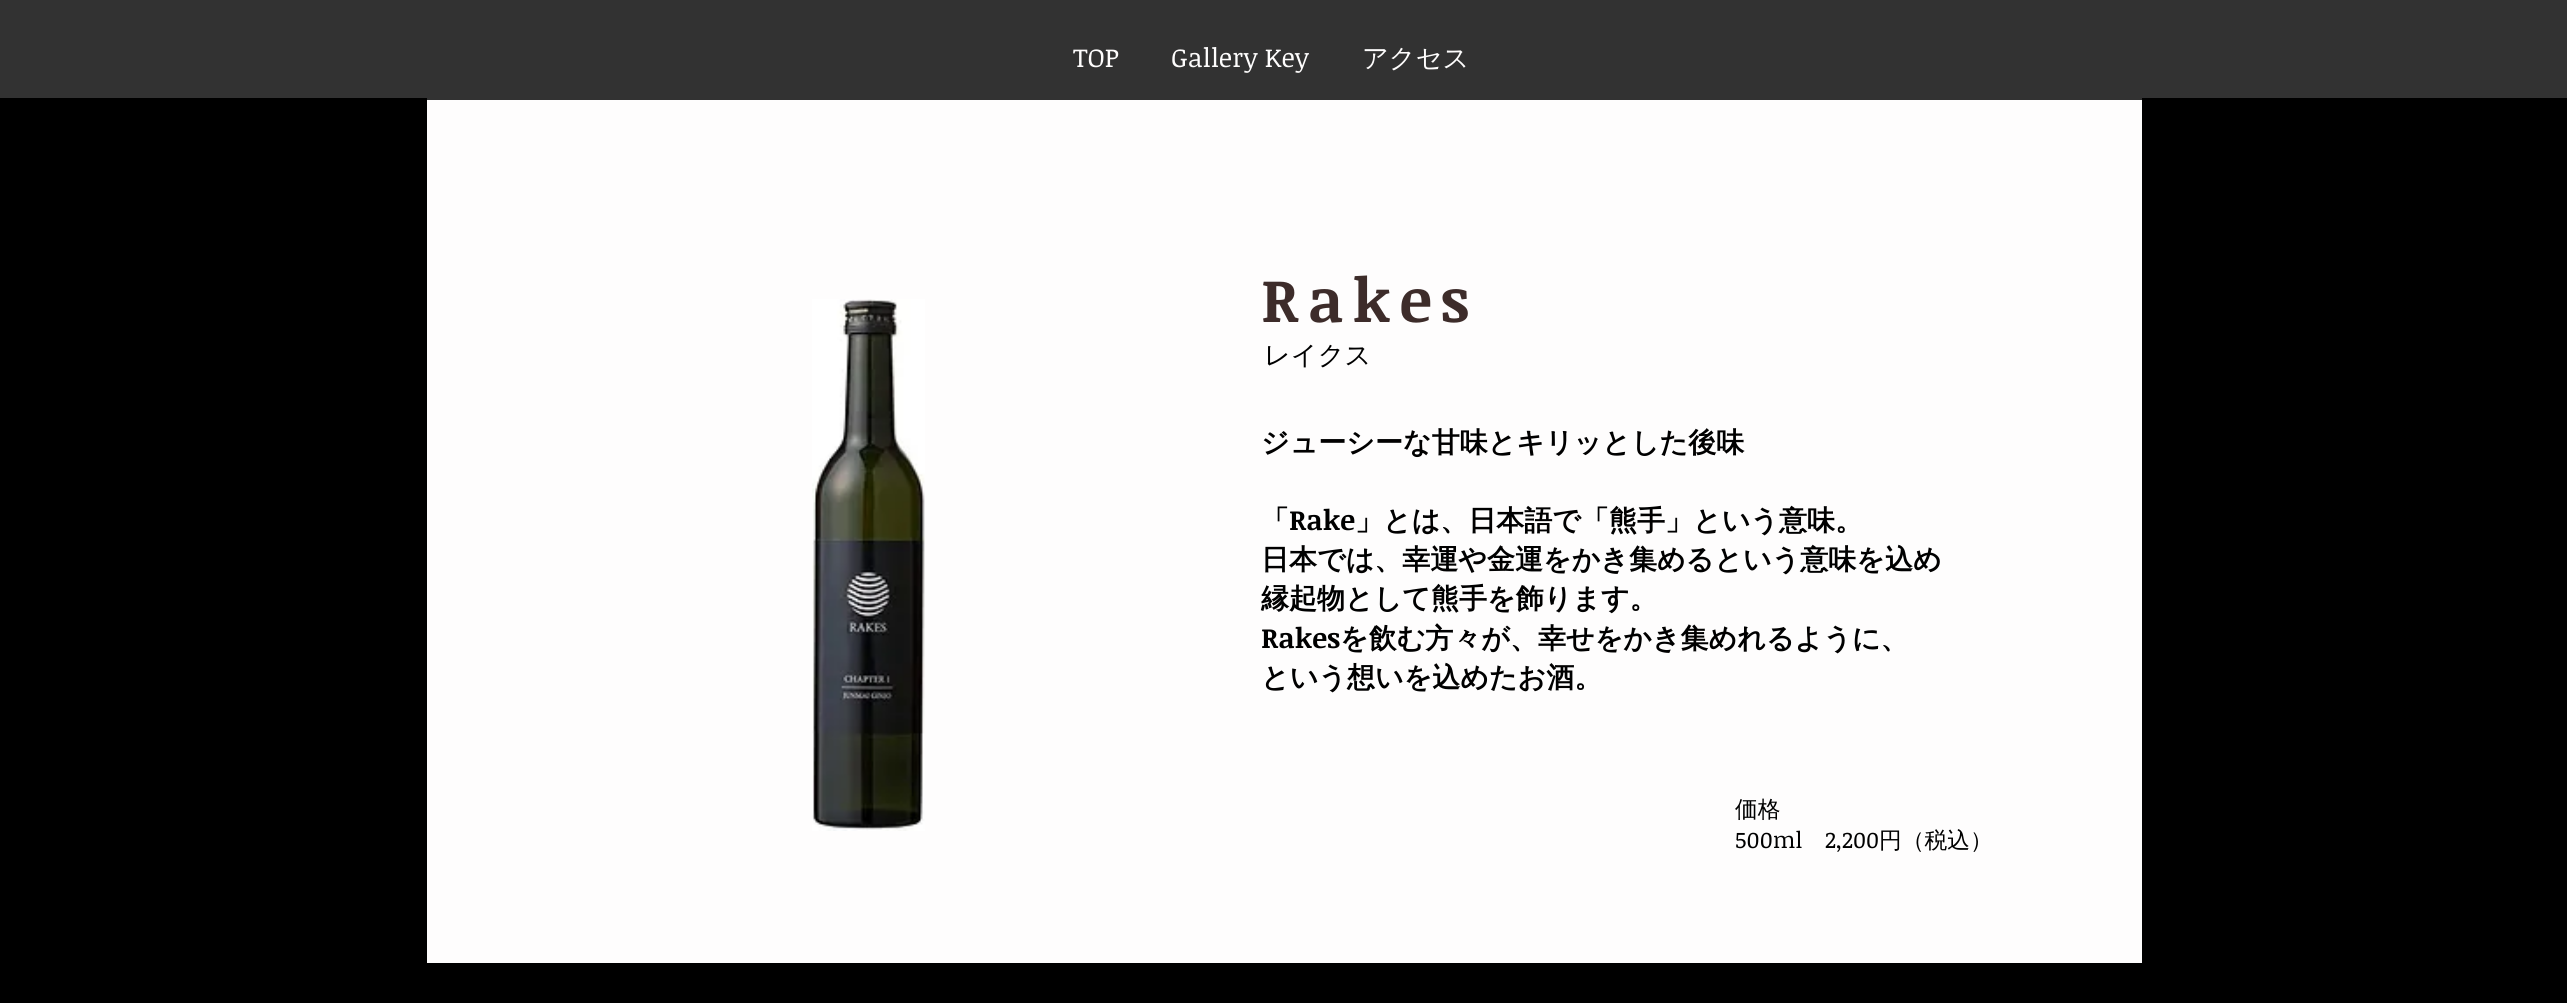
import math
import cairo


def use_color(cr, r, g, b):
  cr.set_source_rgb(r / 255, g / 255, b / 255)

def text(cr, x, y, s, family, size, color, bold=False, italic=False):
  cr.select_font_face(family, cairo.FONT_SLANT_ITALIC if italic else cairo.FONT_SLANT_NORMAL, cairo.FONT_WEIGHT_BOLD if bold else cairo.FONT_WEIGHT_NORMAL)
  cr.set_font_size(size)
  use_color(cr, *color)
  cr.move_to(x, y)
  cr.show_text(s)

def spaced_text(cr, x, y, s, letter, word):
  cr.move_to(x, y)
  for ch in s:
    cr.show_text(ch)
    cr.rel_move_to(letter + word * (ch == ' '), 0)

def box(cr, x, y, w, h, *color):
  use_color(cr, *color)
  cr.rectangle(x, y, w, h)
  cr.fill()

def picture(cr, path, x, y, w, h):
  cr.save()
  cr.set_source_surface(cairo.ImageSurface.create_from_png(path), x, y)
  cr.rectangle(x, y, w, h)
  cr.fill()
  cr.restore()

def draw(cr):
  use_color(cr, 0, 0, 0)
  cr.paint()
  box(cr, 0, 0, 2567, 98, 50, 50, 50)
  box(cr, 427, 98, 1715, 2, 50, 50, 50)
  box(cr, 427, 100, 1715, 863, 254, 253, 253)
  picture(cr, "img_01.png", 812, 299, 113, 532)
  text(cr, 1073, 67, "TOP", "Noticia Text", 26.25, (254, 253, 253))
  text(cr, 1171, 67, "Gallery Key", "Noticia Text", 26.25, (254, 253, 253))
  text(cr, 1362, 67, "アクセス", "WenQuanYi Zen Hei Medium", 26.25, (254, 253, 253))
  cr.select_font_face("Noticia Text", cairo.FONT_SLANT_NORMAL, cairo.FONT_WEIGHT_BOLD)
  cr.set_font_size(61)
  use_color(cr, 61, 44, 42)
  spaced_text(cr, 1261, 322, "Rakes", 9, 0)
  text(cr, 1264, 364, "レイクス", "WenQuanYi Zen Hei Medium", 26.25, (0, 0, 0))
  text(cr, 1261, 452, "ジューシーな甘味とキリッとした後味", "WenQuanYi Zen Hei", 28, (0, 0, 0), bold=True)
  text(cr, 1261, 530, "「", "WenQuanYi Zen Hei", 28, (0, 0, 0), bold=True)
  text(cr, 1289, 530, "Rake", "Noticia Text", 28, (0, 0, 0), bold=True)
  text(cr, 1355, 530, "」とは、日本語で「熊手」という意味。", "WenQuanYi Zen Hei", 28, (0, 0, 0), bold=True)
  text(cr, 1261, 569, "日本では、幸運や金運をかき集めるという意味を込め", "WenQuanYi Zen Hei", 28, (0, 0, 0), bold=True)
  text(cr, 1261, 608, "縁起物として熊手を飾ります。", "WenQuanYi Zen Hei", 28, (0, 0, 0), bold=True)
  text(cr, 1261, 648, "Rakes", "Noticia Text", 28, (0, 0, 0), bold=True)
  text(cr, 1340, 648, "を飲む方々が、幸せをかき集めれるように、", "WenQuanYi Zen Hei", 28, (0, 0, 0), bold=True)
  text(cr, 1261, 687, "という想いを込めたお酒。", "WenQuanYi Zen Hei", 28, (0, 0, 0), bold=True)
  text(cr, 1735, 817, "価格", "WenQuanYi Zen Hei Medium", 22.75, (0, 0, 0))
  text(cr, 1735, 848, "500ml", "Noticia Text", 22.75, (0, 0, 0))
  text(cr, 1825, 848, "2,200", "Noticia Text", 22.75, (0, 0, 0))
  text(cr, 1879, 848, "円（税込）", "WenQuanYi Zen Hei Medium", 22.75, (0, 0, 0))


surface = cairo.ImageSurface(cairo.FORMAT_RGB24, 2567, 1003)
cr = cairo.Context(surface)
options = cairo.FontOptions()
options.set_hint_metrics(cairo.HINT_METRICS_OFF)
options.set_hint_style(cairo.HINT_STYLE_NONE)
cr.set_font_options(options)
cr.set_miter_limit(4)
draw(cr)
surface.write_to_png("out.png")
